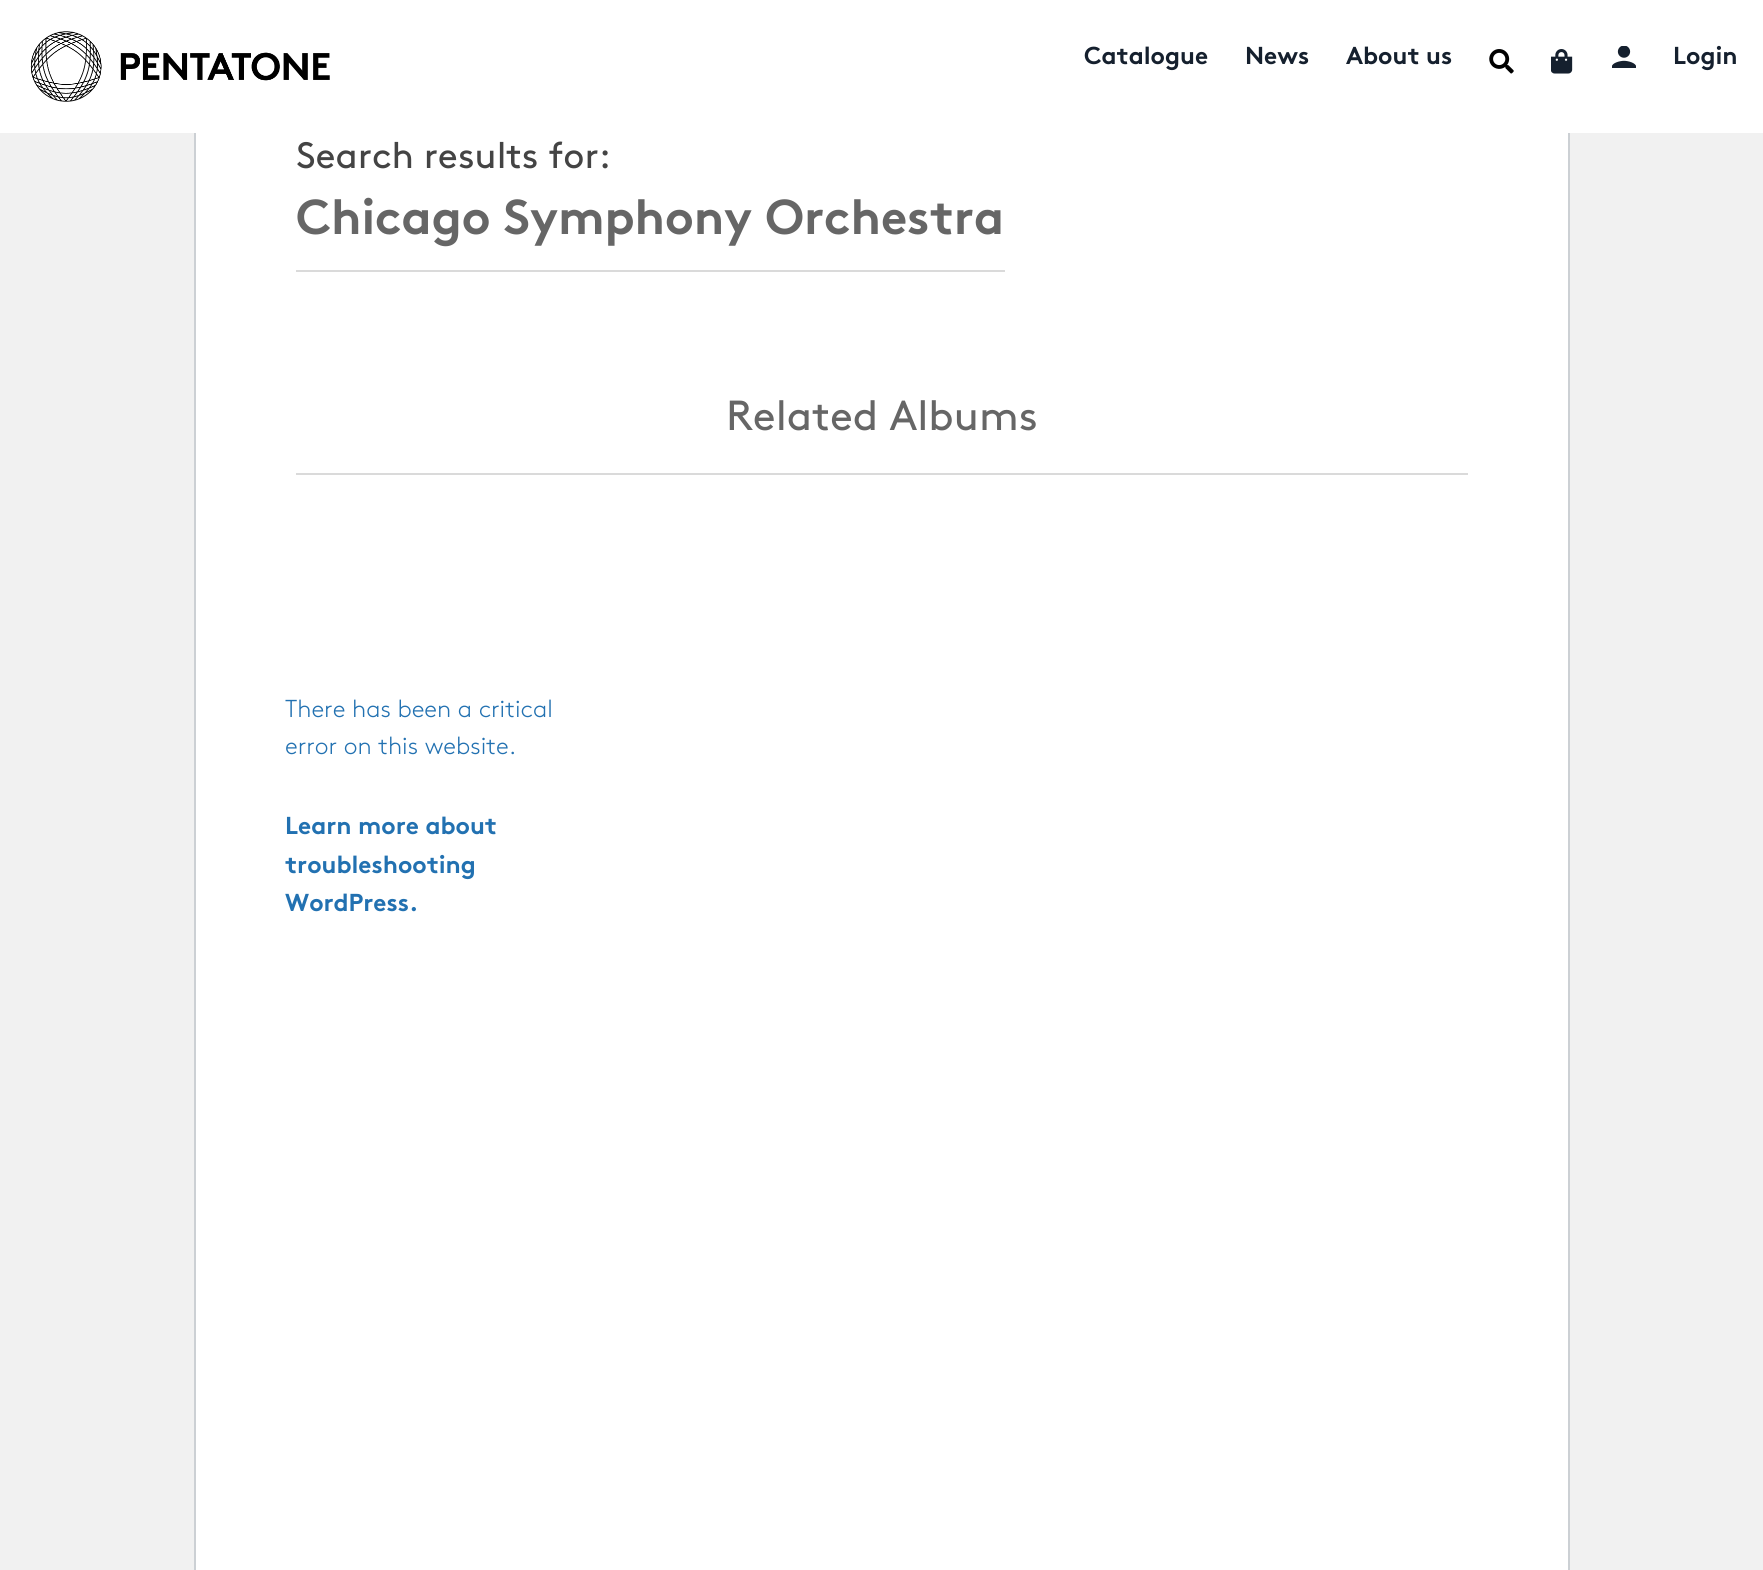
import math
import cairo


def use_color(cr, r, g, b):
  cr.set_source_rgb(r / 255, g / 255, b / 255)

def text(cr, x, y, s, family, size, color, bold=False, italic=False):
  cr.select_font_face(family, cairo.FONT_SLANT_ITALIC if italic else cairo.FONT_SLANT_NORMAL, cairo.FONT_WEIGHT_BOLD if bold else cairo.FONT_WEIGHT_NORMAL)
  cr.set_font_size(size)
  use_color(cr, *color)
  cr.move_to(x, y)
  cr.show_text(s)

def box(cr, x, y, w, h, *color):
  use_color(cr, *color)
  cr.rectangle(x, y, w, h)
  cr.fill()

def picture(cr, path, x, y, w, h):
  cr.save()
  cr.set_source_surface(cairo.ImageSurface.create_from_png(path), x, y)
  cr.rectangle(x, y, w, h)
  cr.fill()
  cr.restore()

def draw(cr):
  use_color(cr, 241, 241, 241)
  cr.paint()
  box(cr, 196, 133, 1372, 1437, 255, 255, 255)
  cr.rectangle(195, 89, 1374, 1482)
  use_color(cr, 204, 208, 212)
  cr.stroke()
  box(cr, 0, 0, 1763, 133, 255, 255, 255)
  picture(cr, "img_01.png", 30, 31, 300, 71)
  picture(cr, "img_02.png", 1489, 49, 25, 25)
  picture(cr, "img_03.png", 1551, 49, 22, 25)
  picture(cr, "img_04.png", 1612, 46, 24, 22)
  box(cr, 296, 270, 709, 2, 218, 218, 218)
  box(cr, 296, 473, 1172, 2, 218, 218, 218)
  text(cr, 1084, 64, "Catalogue", "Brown", 24.5, (21, 32, 46), bold=True)
  text(cr, 1245, 64, "News", "Brown", 24.5, (21, 32, 46), bold=True)
  text(cr, 1346, 64, "About us", "Brown", 24.5, (21, 32, 46), bold=True)
  text(cr, 1673, 64, "Login", "Brown", 24.5, (21, 32, 46), bold=True)
  text(cr, 296, 168, "Search results for:", "Brown", 36.75, (68, 68, 68))
  text(cr, 296, 234, "Chicago Symphony Orchestra", "Brown", 49, (102, 102, 102), bold=True)
  text(cr, 726, 430, "Related Albums", "Brown", 42, (102, 102, 102))
  text(cr, 285, 717, "There has been a critical", "Brown Light", 24.5, (34, 113, 177))
  text(cr, 285, 754, "error on this website.", "Brown Light", 24.5, (34, 113, 177))
  text(cr, 285, 834, "Learn more about", "Brown", 24.5, (34, 113, 177), bold=True)
  text(cr, 285, 873, "troubleshooting", "Brown", 24.5, (34, 113, 177), bold=True)
  text(cr, 285, 911, "WordPress.", "Brown", 24.5, (34, 113, 177), bold=True)


surface = cairo.ImageSurface(cairo.FORMAT_RGB24, 1763, 1570)
cr = cairo.Context(surface)
options = cairo.FontOptions()
options.set_hint_metrics(cairo.HINT_METRICS_OFF)
options.set_hint_style(cairo.HINT_STYLE_NONE)
cr.set_font_options(options)
cr.set_miter_limit(4)
draw(cr)
surface.write_to_png("out.png")
